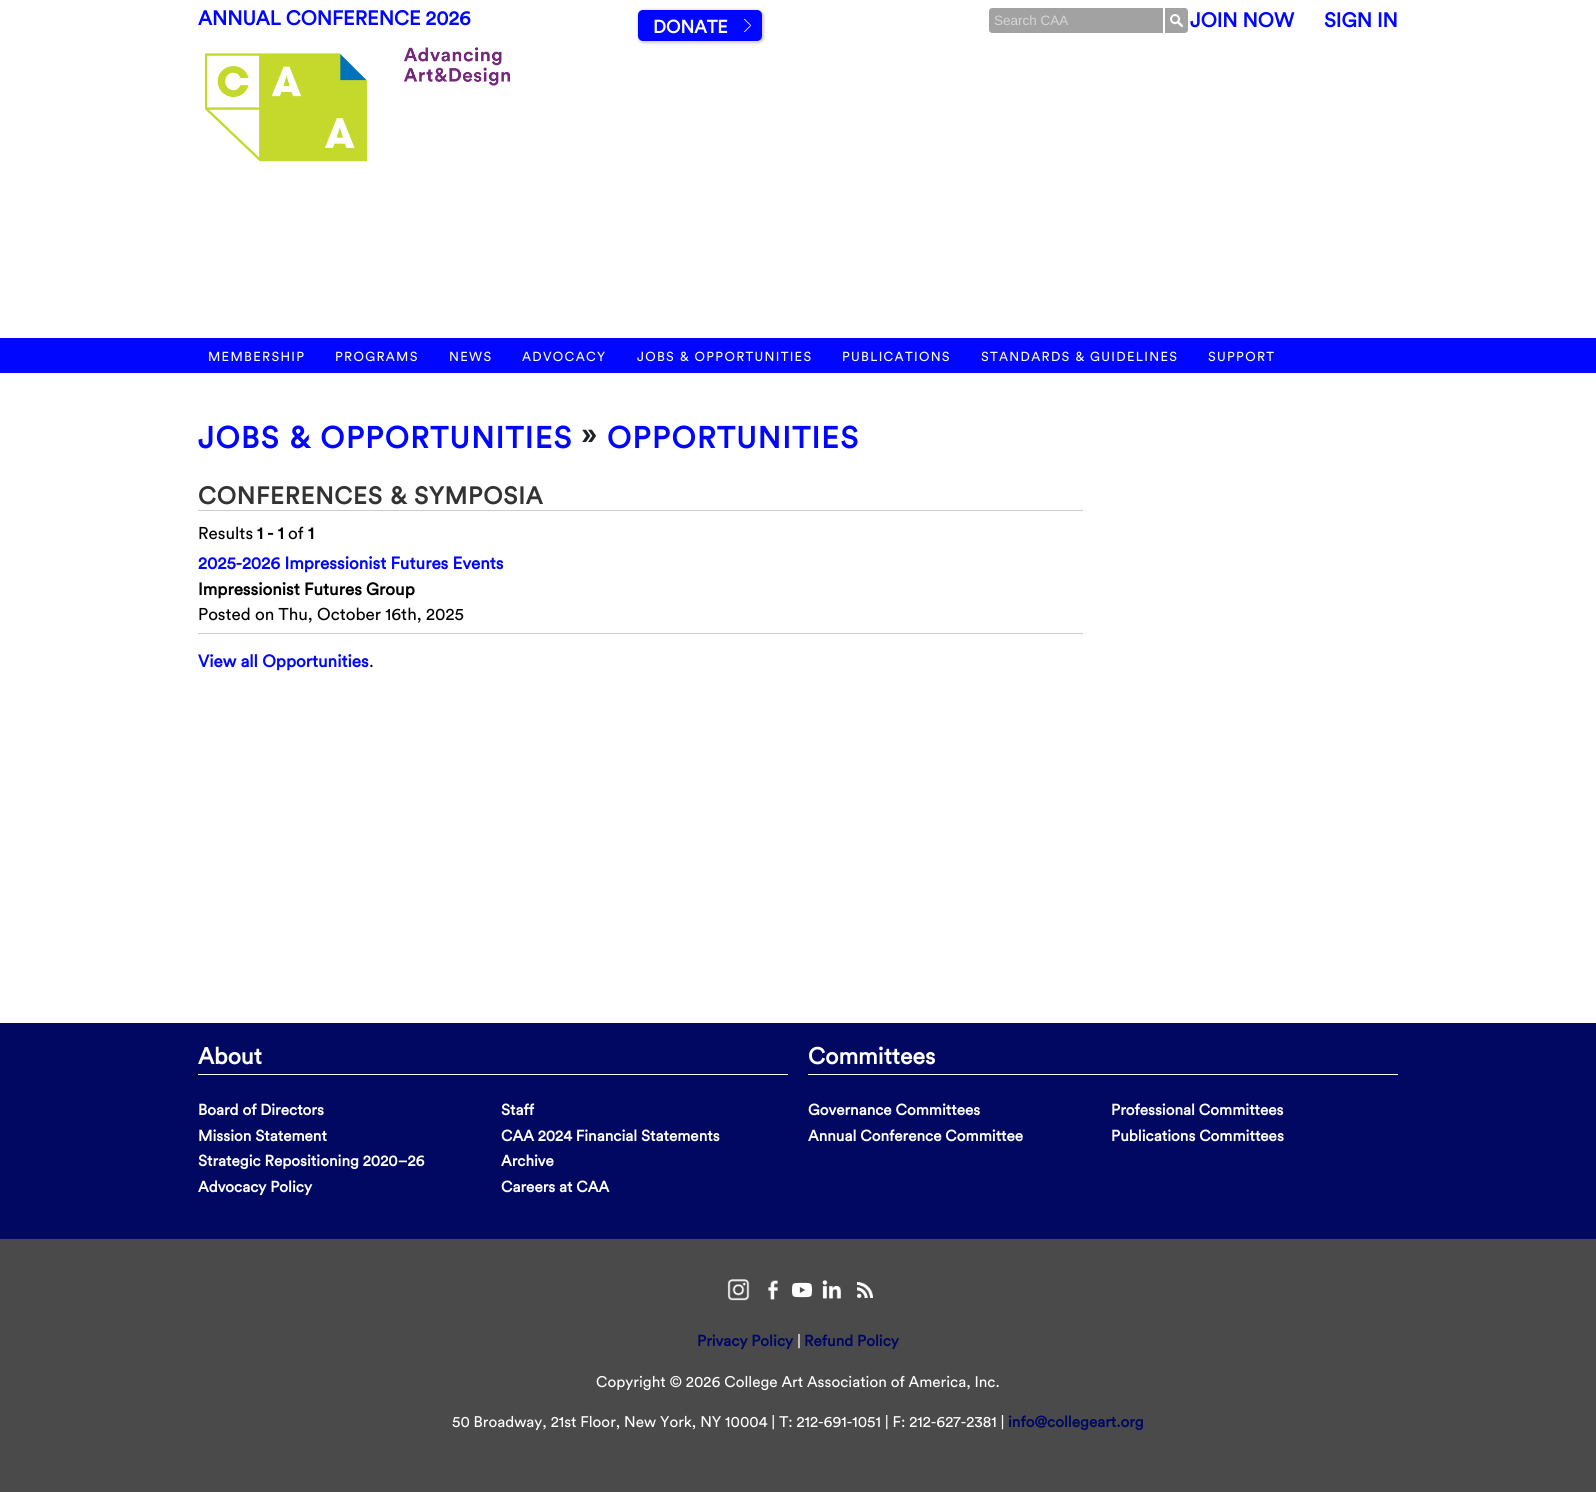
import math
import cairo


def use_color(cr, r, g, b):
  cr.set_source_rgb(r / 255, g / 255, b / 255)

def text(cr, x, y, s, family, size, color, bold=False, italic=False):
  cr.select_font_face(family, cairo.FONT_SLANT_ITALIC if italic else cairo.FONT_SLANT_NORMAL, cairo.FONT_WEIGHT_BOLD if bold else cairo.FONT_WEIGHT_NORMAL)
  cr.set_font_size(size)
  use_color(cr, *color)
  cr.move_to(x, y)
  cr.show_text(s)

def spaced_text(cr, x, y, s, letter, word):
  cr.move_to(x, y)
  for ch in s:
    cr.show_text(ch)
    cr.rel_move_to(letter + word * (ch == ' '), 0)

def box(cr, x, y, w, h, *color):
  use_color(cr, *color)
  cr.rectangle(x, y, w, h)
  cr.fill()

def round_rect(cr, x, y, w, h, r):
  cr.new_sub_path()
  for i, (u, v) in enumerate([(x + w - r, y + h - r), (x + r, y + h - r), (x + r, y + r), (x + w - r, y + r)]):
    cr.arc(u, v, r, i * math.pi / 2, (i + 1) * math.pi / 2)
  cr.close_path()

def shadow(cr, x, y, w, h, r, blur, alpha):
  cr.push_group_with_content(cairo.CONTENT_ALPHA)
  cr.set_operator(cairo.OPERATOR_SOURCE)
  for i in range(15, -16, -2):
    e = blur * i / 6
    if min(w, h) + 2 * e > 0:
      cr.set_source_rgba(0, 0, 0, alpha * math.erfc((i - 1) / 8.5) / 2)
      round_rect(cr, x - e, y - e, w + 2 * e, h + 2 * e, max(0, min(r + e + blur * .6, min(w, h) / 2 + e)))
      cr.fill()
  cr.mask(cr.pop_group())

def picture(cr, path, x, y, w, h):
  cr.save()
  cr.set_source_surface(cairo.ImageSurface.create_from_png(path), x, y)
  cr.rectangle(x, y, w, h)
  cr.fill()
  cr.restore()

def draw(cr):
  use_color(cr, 74, 74, 74)
  cr.paint()
  box(cr, 0, 0, 1596, 338, 255, 255, 255)
  picture(cr, "img_01.png", 204, 47, 307, 115)
  use_color(cr, 0, 0, 0)
  shadow(cr, 638, 10, 126, 33, 6, 1.5, 0.2)
  use_color(cr, 0, 6, 255)
  round_rect(cr, 638, 10, 124, 31, 5)
  cr.fill()
  picture(cr, "img_02.png", 743, 19, 9, 13)
  use_color(cr, 162, 162, 162)
  cr.new_path()
  cr.move_to(992, 8)
  cr.line_to(1163, 8)
  cr.line_to(1163, 33)
  cr.line_to(992, 33)
  cr.curve_to(990.5, 33, 989, 31.5, 989, 30)
  cr.line_to(989, 11)
  cr.curve_to(989, 9.5, 990.5, 8, 992, 8)
  cr.close_path()
  cr.fill()
  cr.new_path()
  cr.move_to(1165, 8)
  cr.line_to(1185, 8)
  cr.curve_to(1186.5, 8, 1188, 9.5, 1188, 11)
  cr.line_to(1188, 30)
  cr.curve_to(1188, 31.5, 1186.5, 33, 1185, 33)
  cr.line_to(1165, 33)
  cr.close_path()
  cr.fill()
  picture(cr, "img_03.png", 1170, 14, 13, 13)
  box(cr, 0, 338, 1596, 35, 0, 6, 255)
  box(cr, 0, 373, 1596, 650, 255, 255, 255)
  box(cr, 198, 510, 885, 1, 204, 204, 204)
  box(cr, 198, 633, 885, 1, 204, 204, 204)
  box(cr, 0, 1023, 1596, 216, 0, 8, 97)
  box(cr, 198, 1074, 590, 1, 255, 255, 255)
  box(cr, 808, 1074, 590, 1, 255, 255, 255)
  picture(cr, "img_04.png", 727, 1279, 23, 22)
  picture(cr, "img_05.png", 768, 1280, 10, 20)
  picture(cr, "img_06.png", 792, 1282, 20, 16)
  picture(cr, "img_07.png", 822, 1280, 19, 19)
  picture(cr, "img_08.png", 857, 1282, 16, 16)
  text(cr, 198, 25, "ANNUAL CONFERENCE 2026", "Circular", 20, (0, 6, 255), bold=True)
  text(cr, 653, 33, "DONATE", "Circular", 18, (255, 255, 255), bold=True)
  text(cr, 994, 25, "Search CAA", "Liberation Sans", 13.5, (213, 213, 213))
  text(cr, 1190, 27, "JOIN NOW", "Circular", 20, (0, 6, 255), bold=True)
  text(cr, 1324, 27, "SIGN IN", "Circular", 20, (0, 6, 255), bold=True)
  cr.select_font_face("Circular")
  cr.set_font_size(13)
  use_color(cr, 255, 255, 255)
  spaced_text(cr, 208, 361, "MEMBERSHIP", 1.3, 0)
  spaced_text(cr, 335, 361, "PROGRAMS", 1.3, 0)
  spaced_text(cr, 449, 361, "NEWS", 1.3, 0)
  spaced_text(cr, 522, 361, "ADVOCACY", 1.3, 0)
  spaced_text(cr, 637, 361, "JOBS & OPPORTUNITIES", 1.3, 0)
  spaced_text(cr, 842, 361, "PUBLICATIONS", 1.3, 0)
  spaced_text(cr, 981, 361, "STANDARDS & GUIDELINES", 1.3, 0)
  spaced_text(cr, 1208, 361, "SUPPORT", 1.3, 0)
  cr.select_font_face("Circular", cairo.FONT_SLANT_NORMAL, cairo.FONT_WEIGHT_BOLD)
  cr.set_font_size(30)
  use_color(cr, 0, 6, 255)
  spaced_text(cr, 198, 448, "JOBS & OPPORTUNITIES", 1.5, 0)
  use_color(cr, 31, 35, 37)
  spaced_text(cr, 582, 445, "»", 1.5, 0)
  use_color(cr, 0, 6, 255)
  spaced_text(cr, 607, 448, "OPPORTUNITIES", 1.5, 0)
  cr.set_font_size(24)
  use_color(cr, 51, 51, 51)
  spaced_text(cr, 198, 504, "CONFERENCES & SYMPOSIA", 0.8, 0)
  text(cr, 198, 539, "Results", "Circular", 17, (0, 0, 0))
  text(cr, 257, 539, "1 - 1", "Circular", 17, (0, 0, 0), bold=True)
  text(cr, 288, 539, "of", "Circular", 17, (0, 0, 0))
  text(cr, 308, 539, "1", "Circular", 17, (0, 0, 0), bold=True)
  text(cr, 198, 569, "2025-2026 Impressionist Futures Events", "Circular", 17, (0, 6, 255), bold=True)
  text(cr, 198, 595, "Impressionist Futures Group", "Circular", 17, (0, 0, 0), bold=True)
  text(cr, 198, 620, "Posted on Thu, October 16th, 2025", "Circular", 17, (0, 0, 0))
  text(cr, 198, 667, "View all Opportunities", "Circular", 17, (0, 6, 255), bold=True)
  text(cr, 369, 667, ".", "Circular", 17, (0, 0, 0))
  text(cr, 198, 1064, "About", "Circular", 23, (255, 255, 255), bold=True)
  text(cr, 198, 1115, "Board of Directors", "Circular", 15.3, (255, 255, 255), bold=True)
  text(cr, 501, 1115, "Staff", "Circular", 15.3, (255, 255, 255), bold=True)
  text(cr, 198, 1141, "Mission Statement", "Circular", 15.3, (255, 255, 255), bold=True)
  text(cr, 501, 1141, "CAA 2024 Financial Statements", "Circular", 15.3, (255, 255, 255), bold=True)
  text(cr, 198, 1166, "Strategic Repositioning 2020–26", "Circular", 15.3, (255, 255, 255), bold=True)
  text(cr, 501, 1166, "Archive", "Circular", 15.3, (255, 255, 255), bold=True)
  text(cr, 198, 1192, "Advocacy Policy", "Circular", 15.3, (255, 255, 255), bold=True)
  text(cr, 501, 1192, "Careers at CAA", "Circular", 15.3, (255, 255, 255), bold=True)
  text(cr, 808, 1064, "Committees", "Circular", 23, (255, 255, 255), bold=True)
  text(cr, 808, 1115, "Governance Committees", "Circular", 15.3, (255, 255, 255), bold=True)
  text(cr, 1111, 1115, "Professional Committees", "Circular", 15.3, (255, 255, 255), bold=True)
  text(cr, 808, 1141, "Annual Conference Committee", "Circular", 15.3, (255, 255, 255), bold=True)
  text(cr, 1111, 1141, "Publications Committees", "Circular", 15.3, (255, 255, 255), bold=True)
  text(cr, 697, 1346, "Privacy Policy", "Circular", 15.3, (0, 8, 97), bold=True)
  text(cr, 797, 1346, "|", "Circular", 15.3, (255, 255, 255))
  text(cr, 804, 1346, "Refund Policy", "Circular", 15.3, (0, 8, 97), bold=True)
  text(cr, 596, 1387, "Copyright © 2026 College Art Association of America, Inc.", "Circular", 15.3, (255, 255, 255))
  text(cr, 452, 1427, "50 Broadway, 21st Floor, New York, NY 10004 | T: 212-691-1051 | F: 212-627-2381 |", "Circular", 15.3, (255, 255, 255))
  text(cr, 1008, 1427, "info@collegeart.org", "Circular", 15.3, (0, 8, 97), bold=True)


surface = cairo.ImageSurface(cairo.FORMAT_RGB24, 1596, 1492)
cr = cairo.Context(surface)
options = cairo.FontOptions()
options.set_hint_metrics(cairo.HINT_METRICS_OFF)
options.set_hint_style(cairo.HINT_STYLE_NONE)
cr.set_font_options(options)
cr.set_miter_limit(4)
draw(cr)
surface.write_to_png("out.png")
